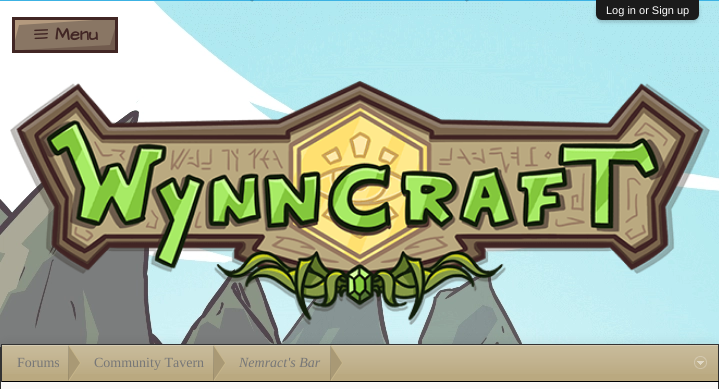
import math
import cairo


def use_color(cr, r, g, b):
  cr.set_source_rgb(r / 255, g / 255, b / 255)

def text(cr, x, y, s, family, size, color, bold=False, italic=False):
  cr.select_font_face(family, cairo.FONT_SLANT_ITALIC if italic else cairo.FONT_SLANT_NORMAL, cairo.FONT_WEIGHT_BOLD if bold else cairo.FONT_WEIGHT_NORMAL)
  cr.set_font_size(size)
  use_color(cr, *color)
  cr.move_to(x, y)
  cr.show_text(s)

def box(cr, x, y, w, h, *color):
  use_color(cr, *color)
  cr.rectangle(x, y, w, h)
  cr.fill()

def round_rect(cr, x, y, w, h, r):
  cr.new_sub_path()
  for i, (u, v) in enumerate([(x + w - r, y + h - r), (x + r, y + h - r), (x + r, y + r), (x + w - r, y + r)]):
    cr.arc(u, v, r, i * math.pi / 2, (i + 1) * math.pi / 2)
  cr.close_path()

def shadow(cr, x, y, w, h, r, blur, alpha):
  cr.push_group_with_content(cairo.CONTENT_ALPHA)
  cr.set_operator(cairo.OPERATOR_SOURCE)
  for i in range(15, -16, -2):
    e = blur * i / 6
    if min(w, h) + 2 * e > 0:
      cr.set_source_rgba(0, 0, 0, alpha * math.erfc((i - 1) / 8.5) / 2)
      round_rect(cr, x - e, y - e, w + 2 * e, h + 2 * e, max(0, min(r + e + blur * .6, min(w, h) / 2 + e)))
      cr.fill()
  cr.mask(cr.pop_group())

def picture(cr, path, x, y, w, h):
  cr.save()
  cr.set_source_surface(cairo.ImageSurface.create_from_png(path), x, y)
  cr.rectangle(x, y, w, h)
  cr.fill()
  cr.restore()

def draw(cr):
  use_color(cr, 255, 255, 255)
  cr.paint()
  picture(cr, "img_02.png", 0, 1, 719, 346)
  box(cr, 0, 0, 719, 1, 60, 178, 227)
  picture(cr, "img_01.png", 250, 0, 219, 2)
  use_color(cr, 0, 0, 0)
  shadow(cr, 596, 2, 103, 20, 6, 2, 0.2)
  use_color(cr, 27, 27, 27)
  cr.new_path()
  cr.move_to(596, 0)
  cr.line_to(699, 0)
  cr.line_to(699, 14)
  cr.curve_to(699, 17.5, 696.5, 20, 693, 20)
  cr.line_to(602, 20)
  cr.curve_to(598.5, 20, 596, 17.5, 596, 14)
  cr.close_path()
  cr.fill()
  cr.rectangle(13.5, 18.5, 103, 33)
  use_color(cr, 65, 38, 36)
  cr.set_line_width(3)
  cr.stroke()
  box(cr, 15, 20, 100, 30, 137, 118, 100)
  cr.save()
  cr.rectangle(15, 20, 100, 30)
  cr.clip()
  use_color(cr, 180, 154, 126)
  cr.new_path()
  cr.move_to(13, 48)
  cr.line_to(19, 25)
  cr.line_to(93, 20)
  cr.line_to(13, 20)
  cr.close_path()
  cr.fill()
  use_color(cr, 113, 91, 78)
  cr.new_path()
  cr.move_to(117, 22)
  cr.line_to(110, 45)
  cr.line_to(21, 50)
  cr.line_to(117, 50)
  cr.close_path()
  cr.fill()
  cr.restore()
  picture(cr, "img_03.png", 34, 29, 14, 11)
  picture(cr, "img_04.png", 10, 81, 700, 244)
  use_color(cr, 0, 0, 0)
  shadow(cr, 0, 344, 719, 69, 6, 6, 0.1)
  use_color(cr, 251, 250, 249)
  round_rect(cr, 0, 344, 719, 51, 6)
  cr.fill()
  box(cr, 718, 382, 1, 7, 51, 51, 51)
  box(cr, 0, 347, 1, 42, 51, 51, 51)
  box(cr, 2, 345, 716, 36, 186, 169, 128)
  picture(cr, "img_05.png", 2, 345, 716, 29)
  box(cr, 1, 344, 718, 1, 51, 51, 51)
  box(cr, 718, 344, 1, 38, 51, 51, 51)
  box(cr, 1, 381, 718, 1, 0, 0, 0)
  box(cr, 1, 344, 1, 38, 51, 51, 51)
  use_color(cr, 200, 182, 139)
  cr.new_path()
  cr.move_to(69, 381)
  cr.line_to(69, 345)
  cr.line_to(81, 363)
  cr.close_path()
  cr.fill()
  cr.set_source_rgba(0, 0, 0, 0.16)
  cr.new_path()
  cr.move_to(68, 381)
  cr.line_to(68, 345)
  cr.line_to(80, 363)
  cr.close_path()
  cr.fill()
  use_color(cr, 200, 182, 139)
  cr.new_path()
  cr.move_to(214, 381)
  cr.line_to(214, 345)
  cr.line_to(226, 363)
  cr.close_path()
  cr.fill()
  cr.set_source_rgba(0, 0, 0, 0.16)
  cr.new_path()
  cr.move_to(213, 381)
  cr.line_to(213, 345)
  cr.line_to(225, 363)
  cr.close_path()
  cr.fill()
  use_color(cr, 200, 182, 139)
  cr.new_path()
  cr.move_to(331, 381)
  cr.line_to(331, 345)
  cr.line_to(343, 363)
  cr.close_path()
  cr.fill()
  cr.set_source_rgba(0, 0, 0, 0.16)
  cr.new_path()
  cr.move_to(330, 381)
  cr.line_to(330, 345)
  cr.line_to(342, 363)
  cr.close_path()
  cr.fill()
  picture(cr, "img_06.png", 694, 356, 13, 13)
  text(cr, 606, 14, "Log in or Sign up", "Liberation Sans", 11, (255, 255, 255))
  text(cr, 55, 40, "Menu", "Architects Daughter", 18, (65, 38, 36), bold=True)
  text(cr, 17, 367, "Forums", "Liberation Serif", 14, (119, 119, 119))
  text(cr, 94, 367, "Community Tavern", "Liberation Serif", 14, (119, 119, 119))
  text(cr, 239, 367, "Nemract's Bar", "Liberation Serif", 14, (119, 119, 119), italic=True)


surface = cairo.ImageSurface(cairo.FORMAT_RGB24, 719, 389)
cr = cairo.Context(surface)
options = cairo.FontOptions()
options.set_hint_metrics(cairo.HINT_METRICS_OFF)
options.set_hint_style(cairo.HINT_STYLE_NONE)
cr.set_font_options(options)
cr.set_miter_limit(4)
draw(cr)
surface.write_to_png("out.png")
